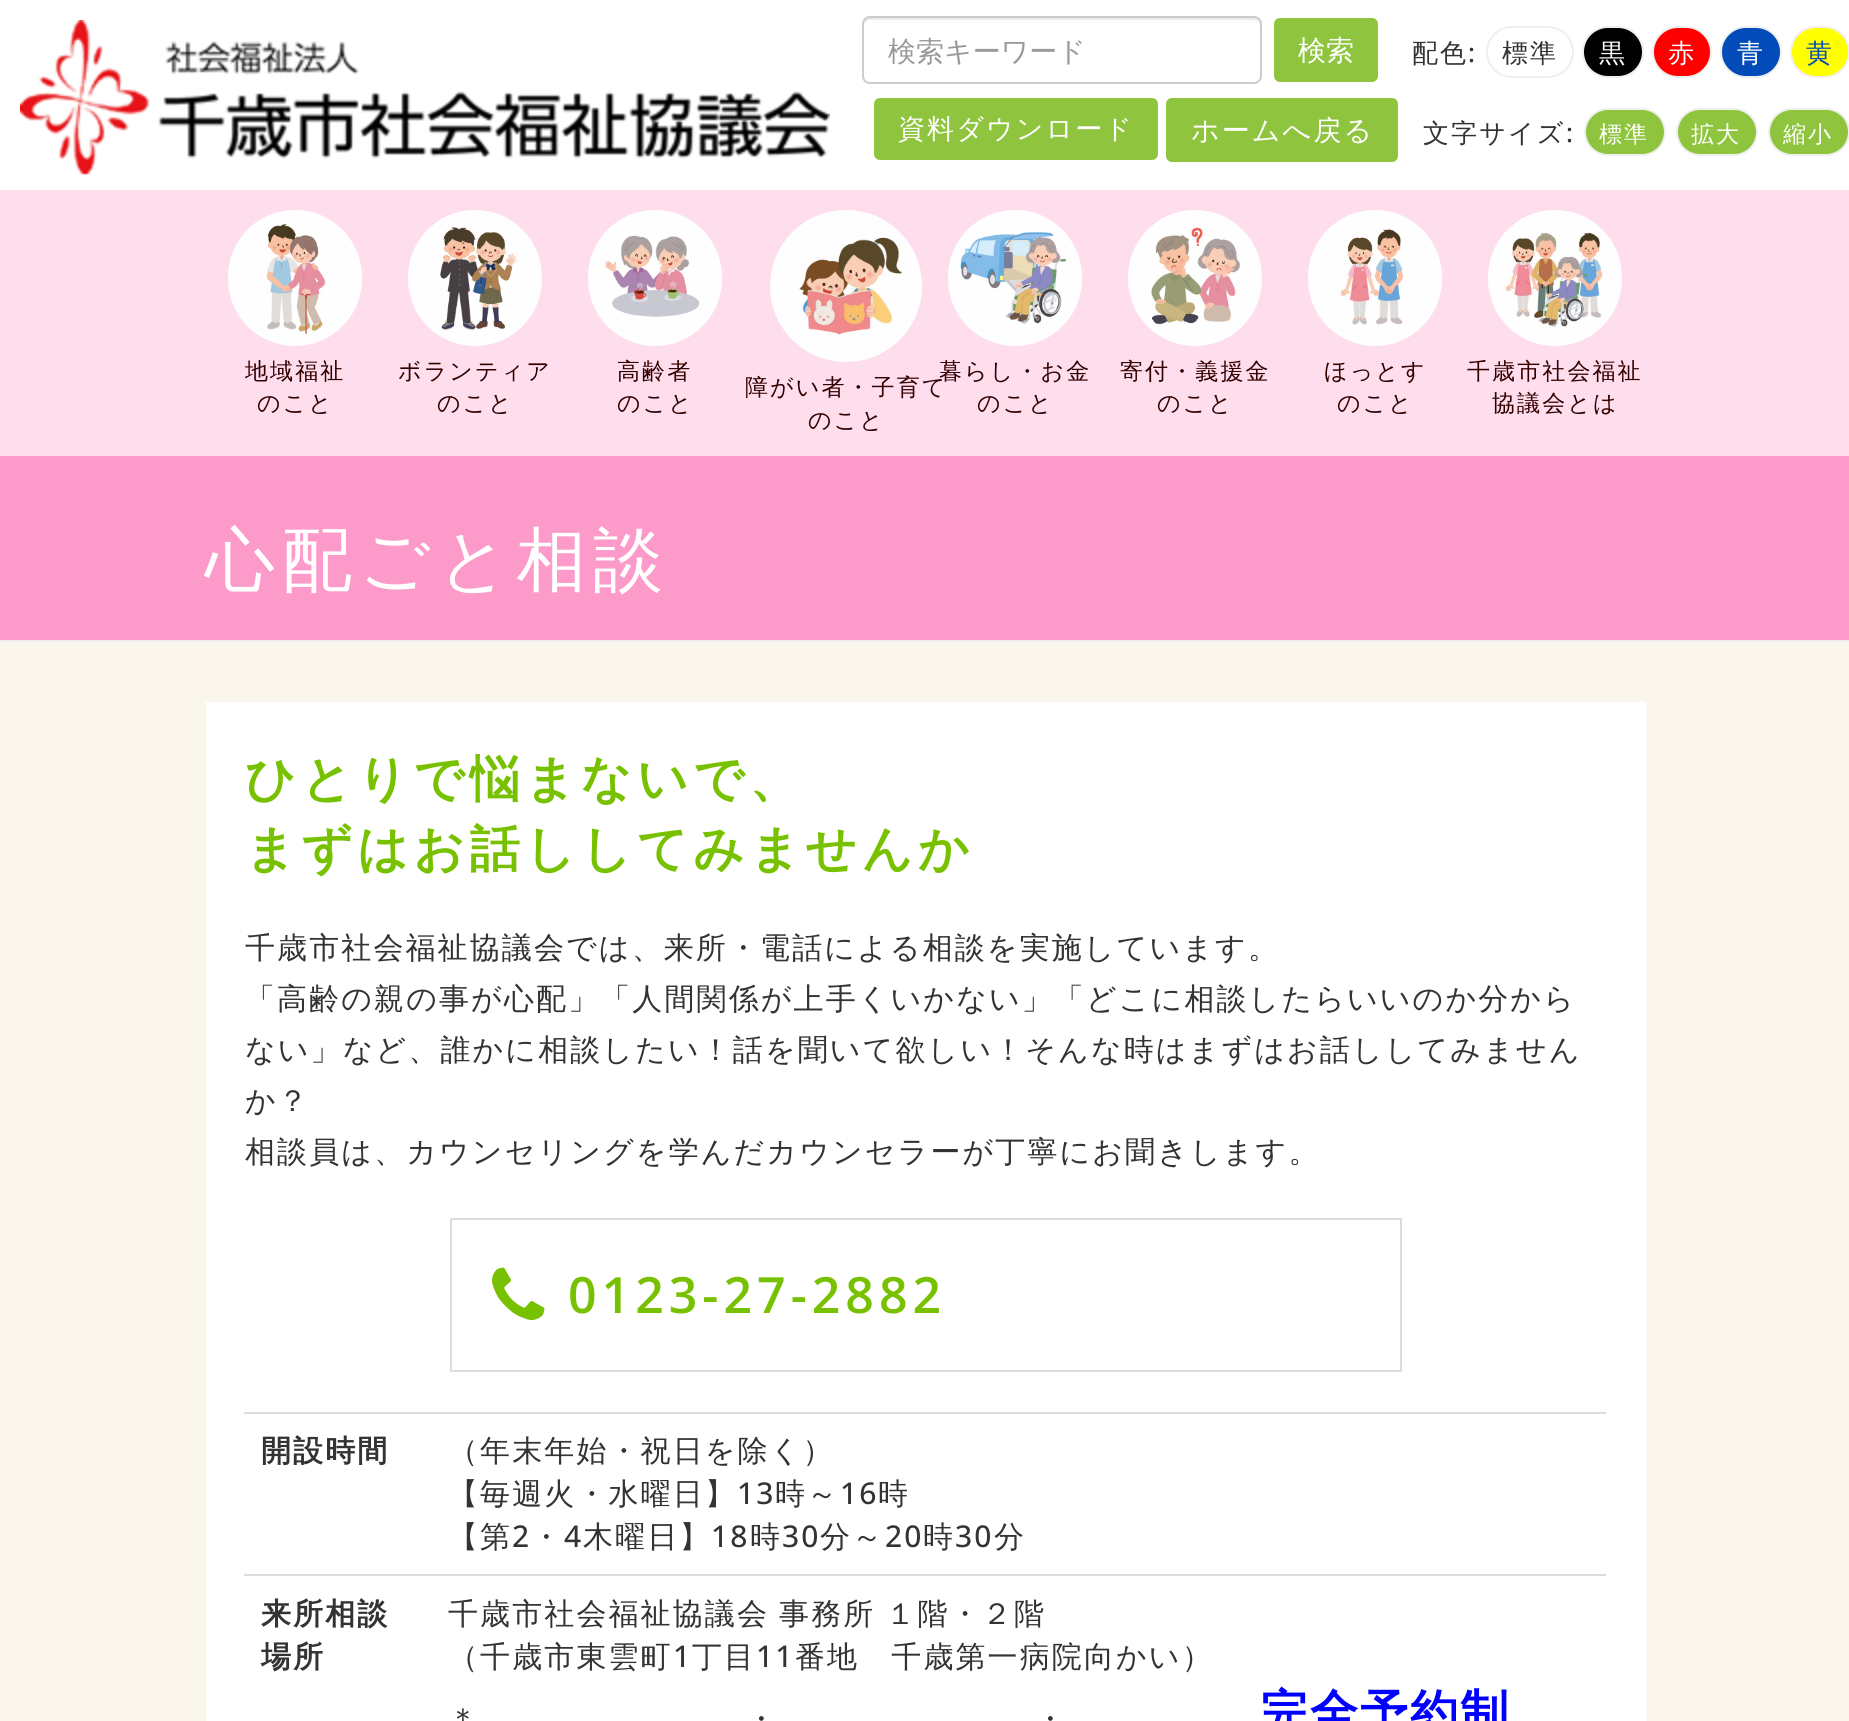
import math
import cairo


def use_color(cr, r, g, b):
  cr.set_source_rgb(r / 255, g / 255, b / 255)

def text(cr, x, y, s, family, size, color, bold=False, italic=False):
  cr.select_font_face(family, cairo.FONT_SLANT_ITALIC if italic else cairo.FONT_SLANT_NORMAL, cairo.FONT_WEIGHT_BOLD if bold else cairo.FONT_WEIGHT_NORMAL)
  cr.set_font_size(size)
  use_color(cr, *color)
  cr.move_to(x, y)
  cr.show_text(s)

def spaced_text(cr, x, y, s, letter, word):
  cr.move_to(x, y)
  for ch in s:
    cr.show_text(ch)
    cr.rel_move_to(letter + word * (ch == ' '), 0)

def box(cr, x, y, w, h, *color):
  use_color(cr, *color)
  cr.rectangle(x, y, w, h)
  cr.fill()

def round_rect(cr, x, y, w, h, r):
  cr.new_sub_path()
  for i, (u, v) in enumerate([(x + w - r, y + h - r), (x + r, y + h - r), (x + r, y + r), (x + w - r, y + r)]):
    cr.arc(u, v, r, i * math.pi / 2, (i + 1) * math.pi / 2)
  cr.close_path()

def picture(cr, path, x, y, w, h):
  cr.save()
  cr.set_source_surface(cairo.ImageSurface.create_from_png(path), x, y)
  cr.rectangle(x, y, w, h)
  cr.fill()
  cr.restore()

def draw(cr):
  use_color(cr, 255, 255, 255)
  cr.paint()
  picture(cr, "img_01.png", 20, 20, 810, 155)
  use_color(cr, 236, 236, 236)
  cr.new_path()
  cr.move_to(870, 20)
  cr.line_to(1254, 20)
  cr.curve_to(1257, 20, 1260, 23, 1260, 26)
  cr.curve_to(1260, 22, 1259, 18, 1254, 18)
  cr.line_to(870, 18)
  cr.curve_to(865, 18, 864, 22, 864, 26)
  cr.curve_to(864, 23, 867, 20, 870, 20)
  cr.close_path()
  cr.fill()
  round_rect(cr, 863, 17, 398, 66, 7)
  use_color(cr, 204, 204, 204)
  cr.stroke()
  use_color(cr, 143, 197, 62)
  round_rect(cr, 1273, 17, 106, 66, 7)
  cr.fill_preserve()
  use_color(cr, 255, 255, 255)
  cr.stroke()
  use_color(cr, 143, 197, 62)
  round_rect(cr, 873, 97, 286, 64, 7)
  cr.fill_preserve()
  use_color(cr, 255, 255, 255)
  cr.stroke()
  round_rect(cr, 1487, 27, 86, 50, 25)
  use_color(cr, 239, 239, 239)
  cr.stroke()
  use_color(cr, 0, 0, 0)
  round_rect(cr, 1583, 27, 60, 50, 25)
  cr.fill_preserve()
  use_color(cr, 239, 239, 239)
  cr.stroke()
  use_color(cr, 255, 0, 0)
  round_rect(cr, 1653, 27, 58, 50, 25)
  cr.fill_preserve()
  use_color(cr, 239, 239, 239)
  cr.stroke()
  use_color(cr, 2, 75, 184)
  round_rect(cr, 1721, 27, 60, 50, 25)
  cr.fill_preserve()
  use_color(cr, 239, 239, 239)
  cr.stroke()
  use_color(cr, 255, 255, 0)
  round_rect(cr, 1791, 27, 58, 50, 25)
  cr.fill_preserve()
  use_color(cr, 239, 239, 239)
  cr.stroke()
  use_color(cr, 143, 197, 62)
  round_rect(cr, 1585, 109, 80, 46, 23)
  cr.fill_preserve()
  use_color(cr, 239, 239, 239)
  cr.stroke()
  use_color(cr, 143, 197, 62)
  round_rect(cr, 1677, 109, 80, 46, 23)
  cr.fill_preserve()
  use_color(cr, 239, 239, 239)
  cr.stroke()
  use_color(cr, 143, 197, 62)
  round_rect(cr, 1769, 109, 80, 46, 23)
  cr.fill_preserve()
  use_color(cr, 239, 239, 239)
  cr.stroke()
  use_color(cr, 143, 197, 62)
  round_rect(cr, 1165, 97, 234, 66, 7)
  cr.fill_preserve()
  use_color(cr, 255, 255, 255)
  cr.stroke()
  box(cr, 0, 190, 1849, 266, 254, 221, 237)
  picture(cr, "img_02.png", 228, 210, 134, 136)
  picture(cr, "img_03.png", 408, 210, 134, 136)
  picture(cr, "img_04.png", 588, 210, 134, 136)
  picture(cr, "img_05.png", 770, 210, 152, 152)
  picture(cr, "img_06.png", 948, 210, 134, 136)
  picture(cr, "img_07.png", 1128, 210, 134, 136)
  picture(cr, "img_08.png", 1308, 210, 134, 136)
  picture(cr, "img_09.png", 1488, 210, 134, 136)
  box(cr, 0, 456, 1849, 184, 252, 155, 201)
  box(cr, 0, 640, 1849, 2, 238, 238, 238)
  box(cr, 0, 642, 1849, 1079, 250, 246, 236)
  box(cr, 206, 702, 1440, 1019, 255, 255, 255)
  cr.rectangle(451, 1219, 950, 152)
  use_color(cr, 221, 221, 221)
  cr.stroke()
  picture(cr, "img_10.png", 492, 1267, 53, 53)
  box(cr, 244, 1412, 1362, 2, 221, 221, 221)
  box(cr, 244, 1574, 1362, 2, 221, 221, 221)
  text(cr, 888, 61, "検索キーワード", "WenQuanYi Zen Hei Medium", 28, (153, 153, 153))
  text(cr, 1298, 60, "検索", "WenQuanYi Zen Hei Medium", 28, (255, 255, 255))
  cr.set_font_size(27)
  spaced_text(cr, 898, 138, "資料ダウンロード", 2.1, 0)
  cr.set_font_size(26)
  use_color(cr, 51, 51, 51)
  spaced_text(cr, 1412, 62, "配色", 2.1, 0)
  cr.select_font_face("Open Sans Medium")
  spaced_text(cr, 1468, 62, ":", 2.1, 0)
  cr.select_font_face("WenQuanYi Zen Hei Medium")
  spaced_text(cr, 1502, 62, "標準", 2.1, 0)
  use_color(cr, 255, 255, 255)
  spaced_text(cr, 1599, 62, "黒", 2.1, 0)
  spaced_text(cr, 1668, 62, "赤", 2.1, 0)
  spaced_text(cr, 1737, 62, "青", 2.1, 0)
  use_color(cr, 2, 75, 184)
  spaced_text(cr, 1806, 62, "黄", 2.1, 0)
  use_color(cr, 51, 51, 51)
  spaced_text(cr, 1423, 142, "文字サイズ", 2.1, 0)
  cr.select_font_face("Open Sans Medium")
  spaced_text(cr, 1566, 142, ":", 2.1, 0)
  cr.select_font_face("WenQuanYi Zen Hei Medium")
  cr.set_font_size(23)
  use_color(cr, 255, 255, 255)
  spaced_text(cr, 1599, 142, "標準", 2.1, 0)
  spaced_text(cr, 1691, 142, "拡大", 2.1, 0)
  spaced_text(cr, 1783, 142, "縮小", 2.1, 0)
  cr.set_font_size(28)
  spaced_text(cr, 1191, 140, "ホームへ戻る", 2.1, 0)
  cr.set_font_size(23)
  use_color(cr, 51, 0, 0)
  spaced_text(cr, 245, 379, "地域福祉", 2.1, 0)
  spaced_text(cr, 257, 411, "のこと", 2.1, 0)
  spaced_text(cr, 398, 379, "ボランティア", 2.1, 0)
  spaced_text(cr, 437, 411, "のこと", 2.1, 0)
  spaced_text(cr, 617, 379, "高齢者", 2.1, 0)
  spaced_text(cr, 617, 411, "のこと", 2.1, 0)
  spaced_text(cr, 745, 395, "障がい者・子育て", 2.1, 0)
  spaced_text(cr, 808, 428, "のこと", 2.1, 0)
  spaced_text(cr, 939, 379, "暮らし・お金", 2.1, 0)
  spaced_text(cr, 977, 411, "のこと", 2.1, 0)
  spaced_text(cr, 1120, 379, "寄付・義援金", 2.1, 0)
  spaced_text(cr, 1157, 411, "のこと", 2.1, 0)
  spaced_text(cr, 1324, 379, "ほっとす", 2.1, 0)
  spaced_text(cr, 1337, 411, "のこと", 2.1, 0)
  spaced_text(cr, 1467, 379, "千歳市社会福祉", 2.1, 0)
  spaced_text(cr, 1492, 411, "協議会とは", 2.1, 0)
  cr.set_font_size(70)
  use_color(cr, 255, 255, 255)
  spaced_text(cr, 205, 584, "心配ごと相談", 7, 0)
  cr.select_font_face("WenQuanYi Zen Hei", cairo.FONT_SLANT_NORMAL, cairo.FONT_WEIGHT_BOLD)
  cr.set_font_size(50)
  use_color(cr, 119, 193, 0)
  spaced_text(cr, 245, 796, "ひとりで悩まないで、", 5, 0)
  spaced_text(cr, 245, 866, "まずはお話ししてみませんか", 5, 0)
  cr.select_font_face("WenQuanYi Zen Hei Medium")
  cr.set_font_size(30)
  use_color(cr, 51, 51, 51)
  spaced_text(cr, 245, 958, "千歳市社会福祉協議会では、来所・電話による相談を実施しています。", 2.1, 0)
  spaced_text(cr, 245, 1009, "「高齢の親の事が心配」「人間関係が上手くいかない」「どこに相談したらいいのか分から", 2.1, 0)
  spaced_text(cr, 245, 1060, "ない」など、誰かに相談したい！話を聞いて欲しい！そんな時はまずはお話ししてみません", 2.1, 0)
  spaced_text(cr, 245, 1111, "か？", 2.1, 0)
  spaced_text(cr, 245, 1162, "相談員は、カウンセリングを学んだカウンセラーが丁寧にお聞きします。", 2.1, 0)
  cr.select_font_face("Open Sans SemiBold")
  cr.set_font_size(50)
  use_color(cr, 119, 193, 0)
  spaced_text(cr, 568, 1313, "0123-27-2882", 5, 0)
  cr.select_font_face("WenQuanYi Zen Hei", cairo.FONT_SLANT_NORMAL, cairo.FONT_WEIGHT_BOLD)
  cr.set_font_size(30)
  use_color(cr, 51, 51, 51)
  spaced_text(cr, 261, 1461, "開設時間", 2.1, 0)
  cr.select_font_face("WenQuanYi Zen Hei Medium")
  spaced_text(cr, 448, 1461, "（年末年始・祝日を除く）", 2.1, 0)
  spaced_text(cr, 448, 1504, "【毎週火・水曜日】", 2.1, 0)
  cr.select_font_face("Open Sans Medium")
  spaced_text(cr, 737, 1504, "13", 2.1, 0)
  cr.select_font_face("WenQuanYi Zen Hei Medium")
  spaced_text(cr, 775, 1504, "時～", 2.1, 0)
  cr.select_font_face("Open Sans Medium")
  spaced_text(cr, 840, 1504, "16", 2.1, 0)
  cr.select_font_face("WenQuanYi Zen Hei Medium")
  spaced_text(cr, 878, 1504, "時", 2.1, 0)
  spaced_text(cr, 448, 1547, "【第", 2.1, 0)
  cr.select_font_face("Open Sans Medium")
  spaced_text(cr, 512, 1547, "2", 2.1, 0)
  cr.select_font_face("WenQuanYi Zen Hei Medium")
  spaced_text(cr, 531, 1547, "・", 2.1, 0)
  cr.select_font_face("Open Sans Medium")
  spaced_text(cr, 564, 1547, "4", 2.1, 0)
  cr.select_font_face("WenQuanYi Zen Hei Medium")
  spaced_text(cr, 583, 1547, "木曜日】", 2.1, 0)
  cr.select_font_face("Open Sans Medium")
  spaced_text(cr, 711, 1547, "18", 2.1, 0)
  cr.select_font_face("WenQuanYi Zen Hei Medium")
  spaced_text(cr, 750, 1547, "時", 2.1, 0)
  cr.select_font_face("Open Sans Medium")
  spaced_text(cr, 782, 1547, "30", 2.1, 0)
  cr.select_font_face("WenQuanYi Zen Hei Medium")
  spaced_text(cr, 820, 1547, "分～", 2.1, 0)
  cr.select_font_face("Open Sans Medium")
  spaced_text(cr, 885, 1547, "20", 2.1, 0)
  cr.select_font_face("WenQuanYi Zen Hei Medium")
  spaced_text(cr, 923, 1547, "時", 2.1, 0)
  cr.select_font_face("Open Sans Medium")
  spaced_text(cr, 955, 1547, "30", 2.1, 0)
  cr.select_font_face("WenQuanYi Zen Hei Medium")
  spaced_text(cr, 994, 1547, "分", 2.1, 0)
  cr.select_font_face("WenQuanYi Zen Hei", cairo.FONT_SLANT_NORMAL, cairo.FONT_WEIGHT_BOLD)
  spaced_text(cr, 261, 1624, "来所相談", 2.1, 0)
  spaced_text(cr, 261, 1667, "場所", 2.1, 0)
  cr.select_font_face("WenQuanYi Zen Hei Medium")
  spaced_text(cr, 448, 1624, "千歳市社会福祉協議会 事務所 １階・２階", 2.1, -1)
  spaced_text(cr, 448, 1667, "（千歳市東雲町", 2.1, 0)
  cr.select_font_face("Open Sans Medium")
  spaced_text(cr, 673, 1667, "1", 2.1, 0)
  cr.select_font_face("WenQuanYi Zen Hei Medium")
  spaced_text(cr, 692, 1667, "丁目", 2.1, 0)
  cr.select_font_face("Open Sans Medium")
  spaced_text(cr, 756, 1667, "11", 2.1, 0)
  cr.select_font_face("WenQuanYi Zen Hei Medium")
  spaced_text(cr, 795, 1667, "番地　千歳第一病院向かい）", 2.1, 0)
  spaced_text(cr, 448, 1729, "＊", 2.1, 0)
  spaced_text(cr, 746, 1729, "・", 2.1, 0)
  spaced_text(cr, 1035, 1729, "・", 2.1, 0)
  cr.select_font_face("WenQuanYi Zen Hei", cairo.FONT_SLANT_NORMAL, cairo.FONT_WEIGHT_BOLD)
  cr.set_font_size(48)
  use_color(cr, 0, 0, 255)
  spaced_text(cr, 1260, 1729, "完全予約制", 2.1, 0)


surface = cairo.ImageSurface(cairo.FORMAT_RGB24, 1849, 1721)
cr = cairo.Context(surface)
options = cairo.FontOptions()
options.set_hint_metrics(cairo.HINT_METRICS_OFF)
options.set_hint_style(cairo.HINT_STYLE_NONE)
cr.set_font_options(options)
cr.set_miter_limit(4)
draw(cr)
surface.write_to_png("out.png")
